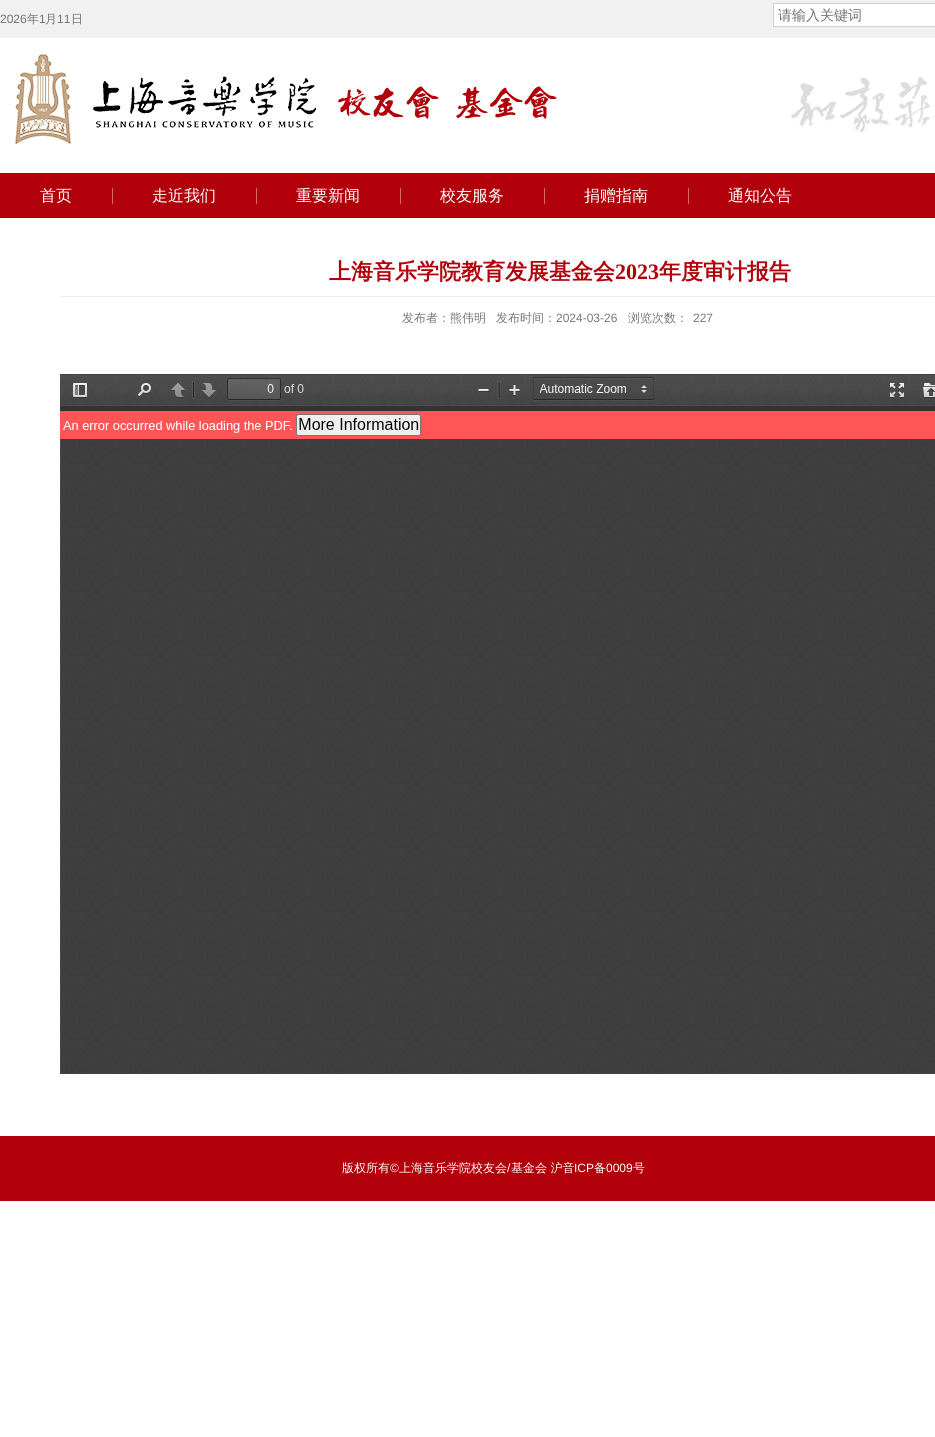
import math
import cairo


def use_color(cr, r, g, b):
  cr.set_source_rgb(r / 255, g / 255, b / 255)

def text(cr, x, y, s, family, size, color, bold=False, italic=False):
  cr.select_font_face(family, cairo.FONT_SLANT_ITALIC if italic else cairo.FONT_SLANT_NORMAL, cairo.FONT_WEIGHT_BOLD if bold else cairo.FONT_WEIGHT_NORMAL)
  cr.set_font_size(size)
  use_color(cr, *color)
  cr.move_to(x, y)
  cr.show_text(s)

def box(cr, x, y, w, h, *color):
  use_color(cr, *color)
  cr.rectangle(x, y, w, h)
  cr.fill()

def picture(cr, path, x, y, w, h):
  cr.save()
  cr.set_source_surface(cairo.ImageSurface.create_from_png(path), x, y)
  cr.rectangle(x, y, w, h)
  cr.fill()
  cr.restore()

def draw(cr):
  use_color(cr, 255, 255, 255)
  cr.paint()
  box(cr, 0, 0, 935, 38, 241, 241, 241)
  use_color(cr, 255, 255, 255)
  cr.rectangle(773.5, 3.5, 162, 23)
  cr.fill_preserve()
  use_color(cr, 208, 208, 208)
  cr.set_line_width(1)
  cr.stroke()
  picture(cr, "img_01.png", 791, 76, 144, 57)
  picture(cr, "img_02.png", 15, 54, 542, 90)
  box(cr, 0, 173, 935, 45, 178, 0, 10)
  box(cr, 112, 188, 1, 16, 208, 110, 116)
  box(cr, 256, 188, 1, 16, 208, 110, 116)
  box(cr, 400, 188, 1, 16, 208, 110, 116)
  box(cr, 544, 188, 1, 16, 208, 110, 116)
  box(cr, 688, 188, 1, 16, 208, 110, 116)
  box(cr, 60, 296, 875, 1, 236, 236, 236)
  picture(cr, "img_03.png", 60, 374, 875, 700)
  box(cr, 0, 1136, 935, 65, 178, 0, 10)
  text(cr, 0, 23, "2026", "Liberation Sans", 12, (114, 114, 114))
  text(cr, 27, 23, "年", "WenQuanYi Zen Hei Medium", 12, (114, 114, 114))
  text(cr, 39, 23, "1", "Liberation Sans", 12, (114, 114, 114))
  text(cr, 45, 23, "月", "WenQuanYi Zen Hei Medium", 12, (114, 114, 114))
  text(cr, 57, 23, "11", "Liberation Sans", 12, (114, 114, 114))
  text(cr, 71, 23, "日", "WenQuanYi Zen Hei Medium", 12, (114, 114, 114))
  text(cr, 778, 20, "请输入关键词", "WenQuanYi Zen Hei Medium", 14, (114, 114, 114))
  text(cr, 40, 201, "首页", "WenQuanYi Zen Hei Medium", 16, (255, 255, 255))
  text(cr, 152, 201, "走近我们", "WenQuanYi Zen Hei Medium", 16, (255, 255, 255))
  text(cr, 296, 201, "重要新闻", "WenQuanYi Zen Hei Medium", 16, (255, 255, 255))
  text(cr, 440, 201, "校友服务", "WenQuanYi Zen Hei Medium", 16, (255, 255, 255))
  text(cr, 584, 201, "捐赠指南", "WenQuanYi Zen Hei Medium", 16, (255, 255, 255))
  text(cr, 728, 201, "通知公告", "WenQuanYi Zen Hei Medium", 16, (255, 255, 255))
  text(cr, 329, 279, "上海音乐学院教育发展基金会", "WenQuanYi Zen Hei", 22, (178, 0, 10), bold=True)
  text(cr, 615, 279, "2023", "Liberation Serif", 22, (178, 0, 10), bold=True)
  text(cr, 659, 279, "年度审计报告", "WenQuanYi Zen Hei", 22, (178, 0, 10), bold=True)
  text(cr, 402, 322, "发布者：熊伟明", "WenQuanYi Zen Hei Medium", 12, (120, 120, 120))
  text(cr, 496, 322, "发布时间：", "WenQuanYi Zen Hei Medium", 12, (120, 120, 120))
  text(cr, 556, 322, "2024-03-26", "Liberation Sans", 12, (120, 120, 120))
  text(cr, 628, 322, "浏览次数：", "WenQuanYi Zen Hei Medium", 12, (120, 120, 120))
  text(cr, 693, 322, "227", "Liberation Sans", 12, (120, 120, 120))
  text(cr, 342, 1172, "版权所有", "WenQuanYi Zen Hei Medium", 12, (255, 255, 255))
  text(cr, 390, 1172, "©", "Liberation Sans", 12, (255, 255, 255))
  text(cr, 399, 1172, "上海音乐学院校友会", "WenQuanYi Zen Hei Medium", 12, (255, 255, 255))
  text(cr, 507, 1172, "/", "Liberation Sans", 12, (255, 255, 255))
  text(cr, 511, 1172, "基金会 沪音", "WenQuanYi Zen Hei Medium", 12, (255, 255, 255))
  text(cr, 574, 1172, "ICP", "Liberation Sans", 12, (255, 255, 255))
  text(cr, 594, 1172, "备", "WenQuanYi Zen Hei Medium", 12, (255, 255, 255))
  text(cr, 606, 1172, "0009", "Liberation Sans", 12, (255, 255, 255))
  text(cr, 633, 1172, "号", "WenQuanYi Zen Hei Medium", 12, (255, 255, 255))


surface = cairo.ImageSurface(cairo.FORMAT_RGB24, 935, 1437)
cr = cairo.Context(surface)
options = cairo.FontOptions()
options.set_hint_metrics(cairo.HINT_METRICS_OFF)
options.set_hint_style(cairo.HINT_STYLE_NONE)
cr.set_font_options(options)
cr.set_miter_limit(4)
draw(cr)
surface.write_to_png("out.png")
